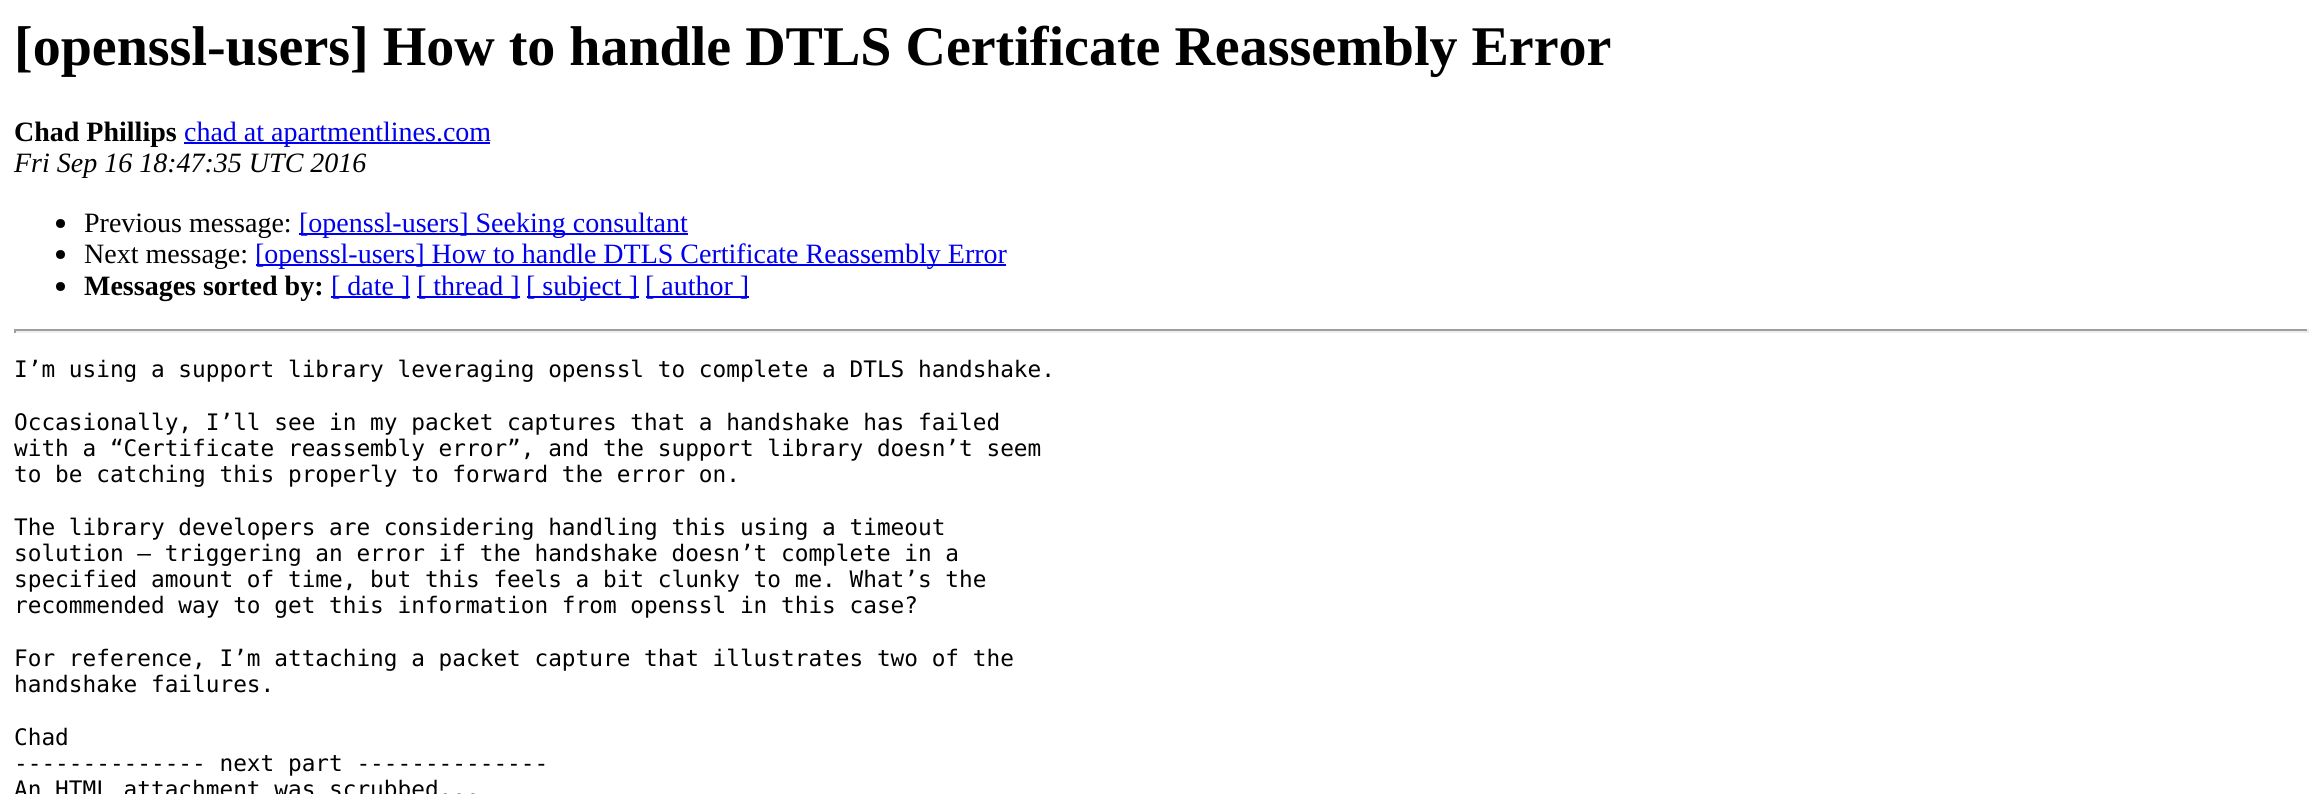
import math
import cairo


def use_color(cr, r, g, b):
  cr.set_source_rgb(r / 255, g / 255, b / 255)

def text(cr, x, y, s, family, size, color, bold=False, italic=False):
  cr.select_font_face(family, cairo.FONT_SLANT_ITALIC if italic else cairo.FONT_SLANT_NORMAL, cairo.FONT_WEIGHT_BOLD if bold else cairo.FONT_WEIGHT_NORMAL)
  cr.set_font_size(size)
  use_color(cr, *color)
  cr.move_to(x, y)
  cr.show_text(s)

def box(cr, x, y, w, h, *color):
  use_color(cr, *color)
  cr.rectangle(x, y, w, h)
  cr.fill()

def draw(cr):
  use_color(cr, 255, 255, 255)
  cr.paint()
  box(cr, 184, 142, 306, 2, 0, 0, 238)
  use_color(cr, 0, 0, 0)
  cr.arc(60.5, 223.5, 4.5, 0, 2 * math.pi)
  cr.fill()
  box(cr, 299, 233, 389, 2, 0, 0, 238)
  use_color(cr, 0, 0, 0)
  cr.arc(60.5, 254.5, 4.5, 0, 2 * math.pi)
  cr.fill()
  box(cr, 256, 264, 750, 2, 0, 0, 238)
  use_color(cr, 0, 0, 0)
  cr.arc(60.5, 286.5, 4.5, 0, 2 * math.pi)
  cr.fill()
  box(cr, 331, 296, 79, 2, 0, 0, 238)
  box(cr, 417, 296, 103, 2, 0, 0, 238)
  box(cr, 527, 296, 112, 2, 0, 0, 238)
  box(cr, 646, 296, 103, 2, 0, 0, 238)
  box(cr, 14, 329, 2294, 2, 159, 159, 159)
  box(cr, 2307, 329, 2, 4, 238, 238, 238)
  box(cr, 14, 331, 2294, 2, 238, 238, 238)
  box(cr, 14, 329, 2, 4, 159, 159, 159)
  text(cr, 14, 65, "[openssl-users] How to handle DTLS Certificate Reassembly Error", "Liberation Serif", 56, (0, 0, 0), bold=True)
  text(cr, 14, 141, "Chad Phillips", "Liberation Serif", 28, (0, 0, 0), bold=True)
  text(cr, 184, 141, "chad at apartmentlines.com", "Liberation Serif", 28, (0, 0, 238))
  text(cr, 14, 172, "Fri Sep 16 18:47:35 UTC 2016", "Liberation Serif", 28, (0, 0, 0), italic=True)
  text(cr, 84, 232, "Previous message:", "Liberation Serif", 28, (0, 0, 0))
  text(cr, 299, 232, "[openssl-users] Seeking consultant", "Liberation Serif", 28, (0, 0, 238))
  text(cr, 84, 263, "Next message:", "Liberation Serif", 28, (0, 0, 0))
  text(cr, 255, 263, "[openssl-users] How to handle DTLS Certificate Reassembly Error", "Liberation Serif", 28, (0, 0, 238))
  text(cr, 84, 295, "Messages sorted by:", "Liberation Serif", 28, (0, 0, 0), bold=True)
  text(cr, 331, 295, "[ date ]", "Liberation Serif", 28, (0, 0, 238))
  text(cr, 417, 295, "[ thread ]", "Liberation Serif", 28, (0, 0, 238))
  text(cr, 526, 295, "[ subject ]", "Liberation Serif", 28, (0, 0, 238))
  text(cr, 645, 295, "[ author ]", "Liberation Serif", 28, (0, 0, 238))
  text(cr, 14, 377, "I’m using a support library leveraging openssl to complete a DTLS handshake.", "DejaVu Sans Mono", 22.75, (0, 0, 0))
  text(cr, 14, 430, "Occasionally, I’ll see in my packet captures that a handshake has failed", "DejaVu Sans Mono", 22.75, (0, 0, 0))
  text(cr, 14, 456, "with a “Certificate reassembly error”, and the support library doesn’t seem", "DejaVu Sans Mono", 22.75, (0, 0, 0))
  text(cr, 14, 482, "to be catching this properly to forward the error on.", "DejaVu Sans Mono", 22.75, (0, 0, 0))
  text(cr, 14, 535, "The library developers are considering handling this using a timeout", "DejaVu Sans Mono", 22.75, (0, 0, 0))
  text(cr, 14, 561, "solution — triggering an error if the handshake doesn’t complete in a", "DejaVu Sans Mono", 22.75, (0, 0, 0))
  text(cr, 14, 587, "specified amount of time, but this feels a bit clunky to me. What’s the", "DejaVu Sans Mono", 22.75, (0, 0, 0))
  text(cr, 14, 613, "recommended way to get this information from openssl in this case?", "DejaVu Sans Mono", 22.75, (0, 0, 0))
  text(cr, 14, 666, "For reference, I’m attaching a packet capture that illustrates two of the", "DejaVu Sans Mono", 22.75, (0, 0, 0))
  text(cr, 14, 692, "handshake failures.", "DejaVu Sans Mono", 22.75, (0, 0, 0))
  text(cr, 14, 745, "Chad", "DejaVu Sans Mono", 22.75, (0, 0, 0))
  text(cr, 14, 771, "-------------- next part --------------", "DejaVu Sans Mono", 22.75, (0, 0, 0))
  text(cr, 14, 797, "An HTML attachment was scrubbed...", "DejaVu Sans Mono", 22.75, (0, 0, 0))


surface = cairo.ImageSurface(cairo.FORMAT_RGB24, 2322, 794)
cr = cairo.Context(surface)
options = cairo.FontOptions()
options.set_hint_metrics(cairo.HINT_METRICS_OFF)
options.set_hint_style(cairo.HINT_STYLE_NONE)
cr.set_font_options(options)
cr.set_miter_limit(4)
draw(cr)
surface.write_to_png("out.png")
